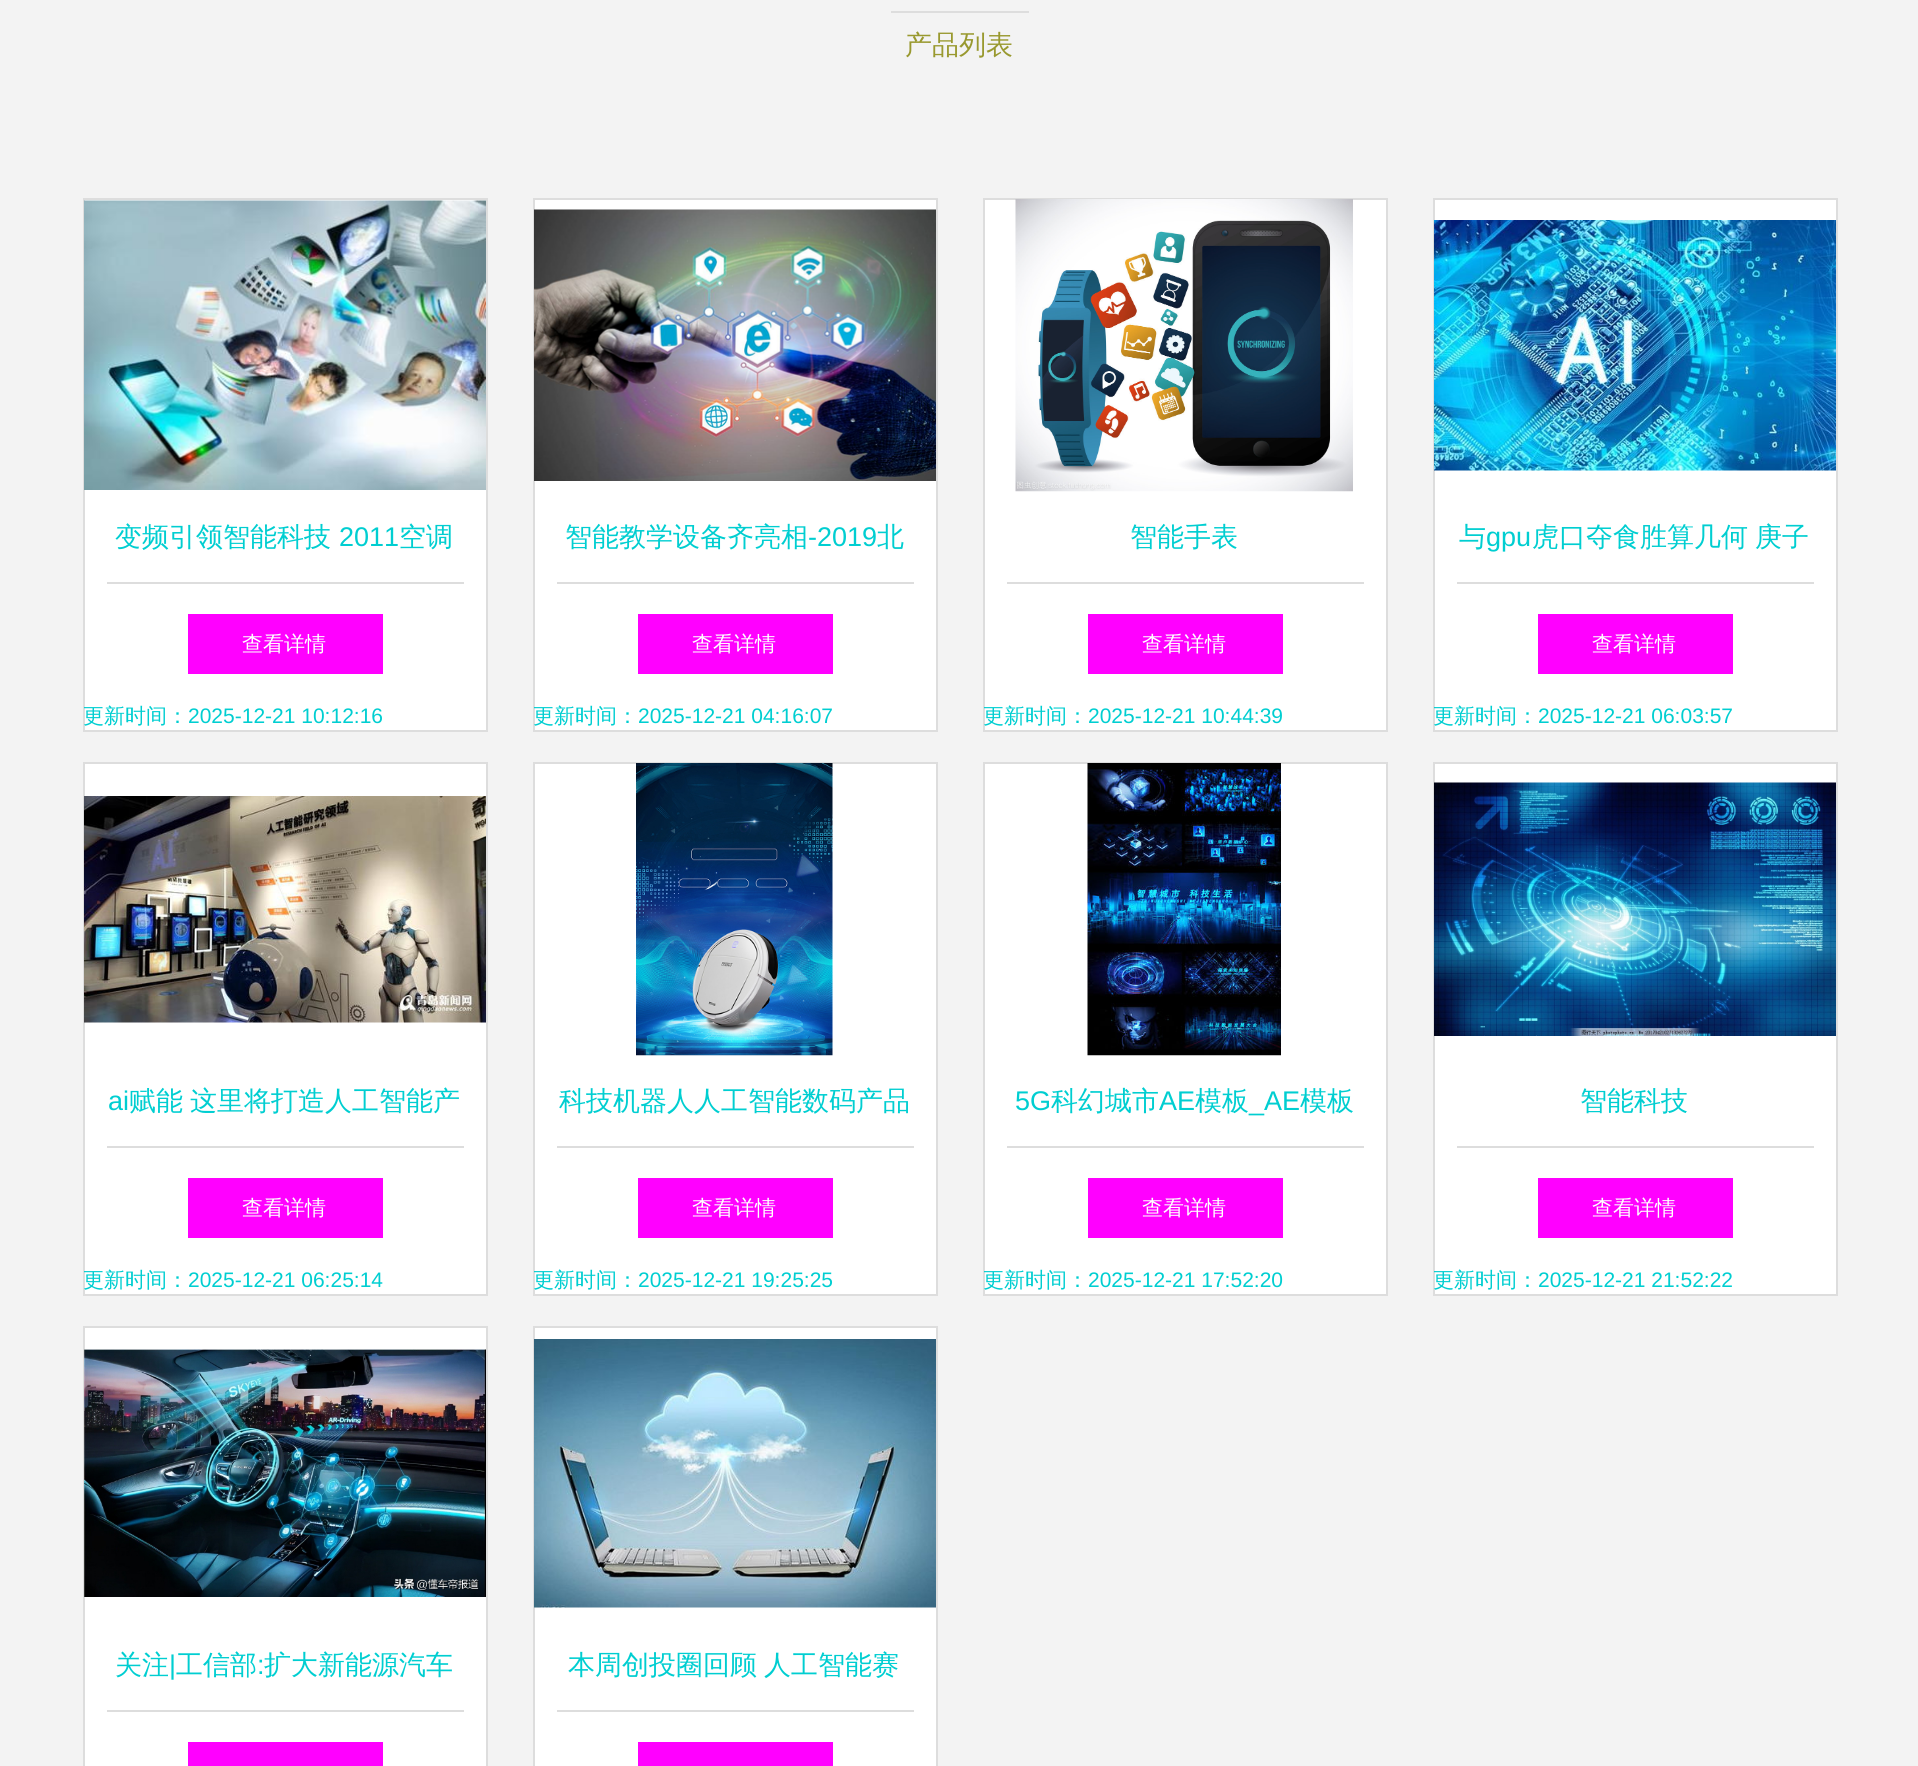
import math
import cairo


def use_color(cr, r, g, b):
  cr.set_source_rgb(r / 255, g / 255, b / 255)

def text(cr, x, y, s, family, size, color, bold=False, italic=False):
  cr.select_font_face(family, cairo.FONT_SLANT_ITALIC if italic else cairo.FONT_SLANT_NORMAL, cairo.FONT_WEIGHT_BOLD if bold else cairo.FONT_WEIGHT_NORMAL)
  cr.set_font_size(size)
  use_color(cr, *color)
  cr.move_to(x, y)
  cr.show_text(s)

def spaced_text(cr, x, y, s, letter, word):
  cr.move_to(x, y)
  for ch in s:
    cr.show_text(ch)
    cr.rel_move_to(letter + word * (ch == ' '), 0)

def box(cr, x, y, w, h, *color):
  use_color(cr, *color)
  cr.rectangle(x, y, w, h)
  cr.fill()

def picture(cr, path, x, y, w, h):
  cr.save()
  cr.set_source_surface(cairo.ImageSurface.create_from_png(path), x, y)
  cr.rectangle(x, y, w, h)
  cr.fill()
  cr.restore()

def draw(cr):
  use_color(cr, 243, 243, 243)
  cr.paint()
  box(cr, 891, 11, 138, 2, 221, 221, 221)
  use_color(cr, 255, 255, 255)
  cr.rectangle(84, 199, 403, 532)
  cr.fill_preserve()
  use_color(cr, 221, 221, 221)
  cr.stroke()
  picture(cr, "img_01.png", 84, 200, 402, 290)
  box(cr, 107, 582, 357, 2, 221, 221, 221)
  box(cr, 188, 614, 195, 60, 255, 0, 255)
  use_color(cr, 255, 255, 255)
  cr.rectangle(534, 199, 403, 532)
  cr.fill_preserve()
  use_color(cr, 221, 221, 221)
  cr.stroke()
  picture(cr, "img_02.png", 534, 209, 402, 272)
  box(cr, 557, 582, 357, 2, 221, 221, 221)
  box(cr, 638, 614, 195, 60, 255, 0, 255)
  use_color(cr, 255, 255, 255)
  cr.rectangle(984, 199, 403, 532)
  cr.fill_preserve()
  use_color(cr, 221, 221, 221)
  cr.stroke()
  picture(cr, "img_03.png", 1015, 199, 338, 293)
  box(cr, 1007, 582, 357, 2, 221, 221, 221)
  box(cr, 1088, 614, 195, 60, 255, 0, 255)
  use_color(cr, 255, 255, 255)
  cr.rectangle(1434, 199, 403, 532)
  cr.fill_preserve()
  use_color(cr, 221, 221, 221)
  cr.stroke()
  picture(cr, "img_04.png", 1434, 220, 402, 251)
  box(cr, 1457, 582, 357, 2, 221, 221, 221)
  box(cr, 1538, 614, 195, 60, 255, 0, 255)
  use_color(cr, 255, 255, 255)
  cr.rectangle(84, 763, 403, 532)
  cr.fill_preserve()
  use_color(cr, 221, 221, 221)
  cr.stroke()
  picture(cr, "img_05.png", 84, 796, 402, 227)
  box(cr, 107, 1146, 357, 2, 221, 221, 221)
  box(cr, 188, 1178, 195, 60, 255, 0, 255)
  use_color(cr, 255, 255, 255)
  cr.rectangle(534, 763, 403, 532)
  cr.fill_preserve()
  use_color(cr, 221, 221, 221)
  cr.stroke()
  picture(cr, "img_06.png", 636, 763, 197, 293)
  box(cr, 557, 1146, 357, 2, 221, 221, 221)
  box(cr, 638, 1178, 195, 60, 255, 0, 255)
  use_color(cr, 255, 255, 255)
  cr.rectangle(984, 763, 403, 532)
  cr.fill_preserve()
  use_color(cr, 221, 221, 221)
  cr.stroke()
  picture(cr, "img_07.png", 1087, 763, 194, 293)
  box(cr, 1007, 1146, 357, 2, 221, 221, 221)
  box(cr, 1088, 1178, 195, 60, 255, 0, 255)
  use_color(cr, 255, 255, 255)
  cr.rectangle(1434, 763, 403, 532)
  cr.fill_preserve()
  use_color(cr, 221, 221, 221)
  cr.stroke()
  picture(cr, "img_08.png", 1434, 782, 402, 254)
  box(cr, 1457, 1146, 357, 2, 221, 221, 221)
  box(cr, 1538, 1178, 195, 60, 255, 0, 255)
  use_color(cr, 255, 255, 255)
  cr.rectangle(84, 1327, 403, 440)
  cr.fill_preserve()
  use_color(cr, 221, 221, 221)
  cr.stroke()
  picture(cr, "img_09.png", 84, 1349, 402, 248)
  box(cr, 107, 1710, 357, 2, 221, 221, 221)
  box(cr, 188, 1742, 195, 24, 255, 0, 255)
  use_color(cr, 255, 255, 255)
  cr.rectangle(534, 1327, 403, 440)
  cr.fill_preserve()
  use_color(cr, 221, 221, 221)
  cr.stroke()
  picture(cr, "img_10.png", 534, 1339, 402, 269)
  box(cr, 557, 1710, 357, 2, 221, 221, 221)
  box(cr, 638, 1742, 195, 24, 255, 0, 255)
  text(cr, 905, 54, "产品列表", "WenQuanYi Zen Hei Medium", 27, (153, 153, 47))
  text(cr, 115, 546, "变频引领智能科技", "WenQuanYi Zen Hei Medium", 27, (0, 206, 209))
  text(cr, 339, 546, "2011", "Liberation Sans", 27, (0, 206, 209))
  text(cr, 399, 546, "空调", "WenQuanYi Zen Hei Medium", 27, (0, 206, 209))
  text(cr, 242, 651, "查看详情", "WenQuanYi Zen Hei Medium", 21, (255, 255, 255))
  text(cr, 83, 723, "更新时间：", "WenQuanYi Zen Hei Medium", 21, (0, 206, 209))
  text(cr, 188, 723, "2025-12-21 10:12:16", "Liberation Sans", 21, (0, 206, 209))
  text(cr, 565, 546, "智能教学设备齐亮相", "WenQuanYi Zen Hei Medium", 27, (0, 206, 209))
  text(cr, 808, 546, "-2019", "Liberation Sans", 27, (0, 206, 209))
  text(cr, 877, 546, "北", "WenQuanYi Zen Hei Medium", 27, (0, 206, 209))
  text(cr, 692, 651, "查看详情", "WenQuanYi Zen Hei Medium", 21, (255, 255, 255))
  text(cr, 533, 723, "更新时间：", "WenQuanYi Zen Hei Medium", 21, (0, 206, 209))
  text(cr, 638, 723, "2025-12-21 04:16:07", "Liberation Sans", 21, (0, 206, 209))
  text(cr, 1130, 546, "智能手表", "WenQuanYi Zen Hei Medium", 27, (0, 206, 209))
  text(cr, 1142, 651, "查看详情", "WenQuanYi Zen Hei Medium", 21, (255, 255, 255))
  text(cr, 983, 723, "更新时间：", "WenQuanYi Zen Hei Medium", 21, (0, 206, 209))
  text(cr, 1088, 723, "2025-12-21 10:44:39", "Liberation Sans", 21, (0, 206, 209))
  text(cr, 1459, 546, "与", "WenQuanYi Zen Hei Medium", 27, (0, 206, 209))
  text(cr, 1486, 546, "gpu", "Liberation Sans", 27, (0, 206, 209))
  cr.select_font_face("WenQuanYi Zen Hei Medium")
  spaced_text(cr, 1532, 546, "虎口夺食胜算几何 庚子", 0, -1)
  text(cr, 1592, 651, "查看详情", "WenQuanYi Zen Hei Medium", 21, (255, 255, 255))
  text(cr, 1433, 723, "更新时间：", "WenQuanYi Zen Hei Medium", 21, (0, 206, 209))
  text(cr, 1538, 723, "2025-12-21 06:03:57", "Liberation Sans", 21, (0, 206, 209))
  text(cr, 108, 1110, "ai", "Liberation Sans", 27, (0, 206, 209))
  cr.select_font_face("WenQuanYi Zen Hei Medium")
  spaced_text(cr, 129, 1110, "赋能 这里将打造人工智能产", 0, -1)
  text(cr, 242, 1215, "查看详情", "WenQuanYi Zen Hei Medium", 21, (255, 255, 255))
  text(cr, 83, 1287, "更新时间：", "WenQuanYi Zen Hei Medium", 21, (0, 206, 209))
  text(cr, 188, 1287, "2025-12-21 06:25:14", "Liberation Sans", 21, (0, 206, 209))
  text(cr, 559, 1110, "科技机器人人工智能数码产品", "WenQuanYi Zen Hei Medium", 27, (0, 206, 209))
  text(cr, 692, 1215, "查看详情", "WenQuanYi Zen Hei Medium", 21, (255, 255, 255))
  text(cr, 533, 1287, "更新时间：", "WenQuanYi Zen Hei Medium", 21, (0, 206, 209))
  text(cr, 638, 1287, "2025-12-21 19:25:25", "Liberation Sans", 21, (0, 206, 209))
  text(cr, 1015, 1110, "5G", "Liberation Sans", 27, (0, 206, 209))
  text(cr, 1051, 1110, "科幻城市", "WenQuanYi Zen Hei Medium", 27, (0, 206, 209))
  text(cr, 1159, 1110, "AE", "Liberation Sans", 27, (0, 206, 209))
  text(cr, 1195, 1110, "模板", "WenQuanYi Zen Hei Medium", 27, (0, 206, 209))
  text(cr, 1249, 1110, "_AE", "Liberation Sans", 27, (0, 206, 209))
  text(cr, 1300, 1110, "模板", "WenQuanYi Zen Hei Medium", 27, (0, 206, 209))
  text(cr, 1142, 1215, "查看详情", "WenQuanYi Zen Hei Medium", 21, (255, 255, 255))
  text(cr, 983, 1287, "更新时间：", "WenQuanYi Zen Hei Medium", 21, (0, 206, 209))
  text(cr, 1088, 1287, "2025-12-21 17:52:20", "Liberation Sans", 21, (0, 206, 209))
  text(cr, 1580, 1110, "智能科技", "WenQuanYi Zen Hei Medium", 27, (0, 206, 209))
  text(cr, 1592, 1215, "查看详情", "WenQuanYi Zen Hei Medium", 21, (255, 255, 255))
  text(cr, 1433, 1287, "更新时间：", "WenQuanYi Zen Hei Medium", 21, (0, 206, 209))
  text(cr, 1538, 1287, "2025-12-21 21:52:22", "Liberation Sans", 21, (0, 206, 209))
  text(cr, 115, 1674, "关注", "WenQuanYi Zen Hei Medium", 27, (0, 206, 209))
  text(cr, 169, 1674, "|", "Liberation Sans", 27, (0, 206, 209))
  text(cr, 176, 1674, "工信部", "WenQuanYi Zen Hei Medium", 27, (0, 206, 209))
  text(cr, 257, 1674, ":", "Liberation Sans", 27, (0, 206, 209))
  text(cr, 264, 1674, "扩大新能源汽车", "WenQuanYi Zen Hei Medium", 27, (0, 206, 209))
  spaced_text(cr, 568, 1674, "本周创投圈回顾 人工智能赛", 0, -1)


surface = cairo.ImageSurface(cairo.FORMAT_RGB24, 1918, 1766)
cr = cairo.Context(surface)
options = cairo.FontOptions()
options.set_hint_metrics(cairo.HINT_METRICS_OFF)
options.set_hint_style(cairo.HINT_STYLE_NONE)
cr.set_font_options(options)
cr.set_miter_limit(4)
draw(cr)
surface.write_to_png("out.png")
